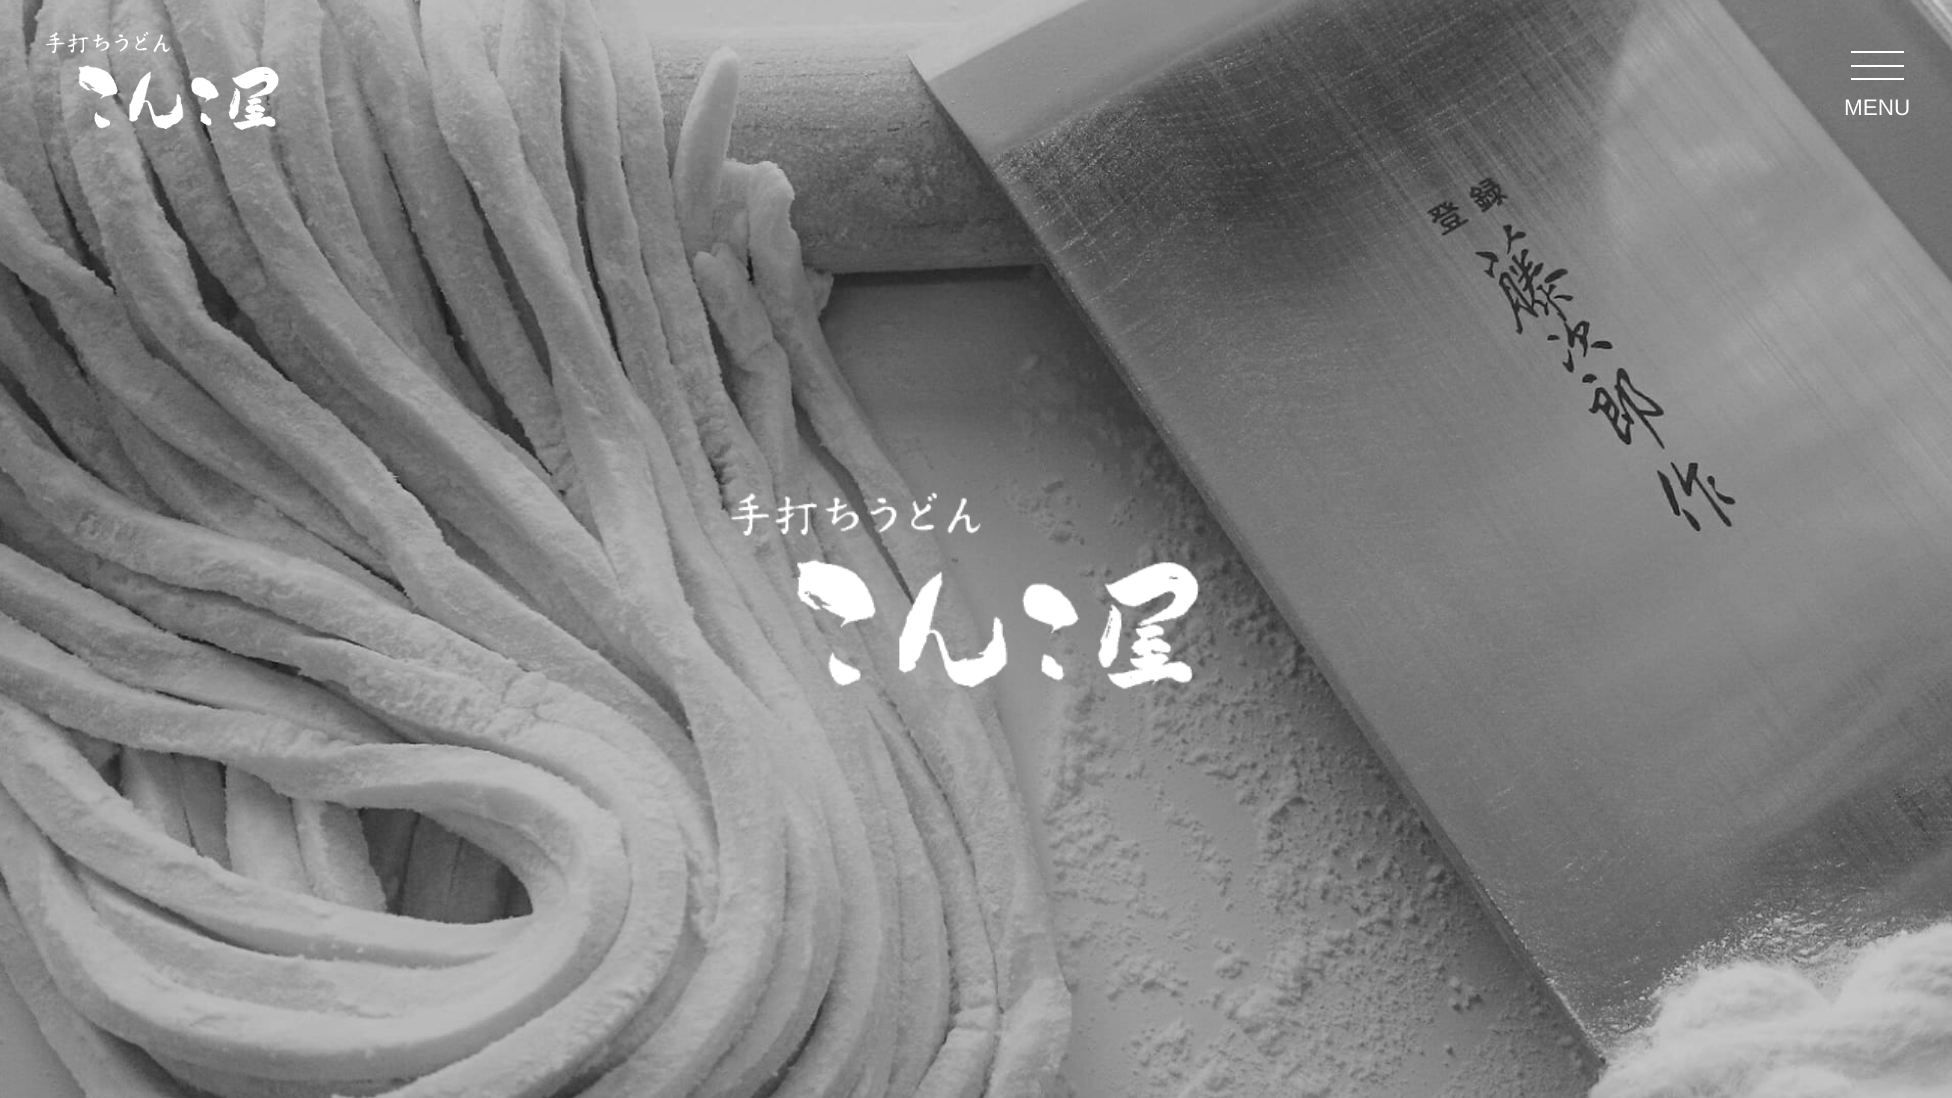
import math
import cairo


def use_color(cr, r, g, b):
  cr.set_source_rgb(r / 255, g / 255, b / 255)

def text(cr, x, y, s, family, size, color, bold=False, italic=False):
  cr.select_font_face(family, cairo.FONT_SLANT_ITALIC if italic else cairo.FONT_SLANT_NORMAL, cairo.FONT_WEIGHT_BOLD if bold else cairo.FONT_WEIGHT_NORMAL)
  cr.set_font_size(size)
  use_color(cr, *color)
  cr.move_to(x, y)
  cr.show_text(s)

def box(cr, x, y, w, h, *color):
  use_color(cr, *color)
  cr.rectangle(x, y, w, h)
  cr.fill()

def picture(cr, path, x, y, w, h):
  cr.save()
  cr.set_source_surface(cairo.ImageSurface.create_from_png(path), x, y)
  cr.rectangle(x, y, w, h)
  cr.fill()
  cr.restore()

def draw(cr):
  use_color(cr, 255, 255, 255)
  cr.paint()
  picture(cr, "img_01.png", 0, 0, 1952, 1098)
  picture(cr, "img_02.png", 731, 491, 469, 199)
  picture(cr, "img_03.png", 45, 31, 234, 100)
  box(cr, 1851, 51, 53, 2, 255, 255, 255)
  box(cr, 1851, 65, 53, 2, 255, 255, 255)
  box(cr, 1851, 78, 53, 2, 255, 255, 255)
  text(cr, 1844, 115, "MENU", "Liberation Sans", 22.5, (255, 255, 255))


surface = cairo.ImageSurface(cairo.FORMAT_RGB24, 1952, 1098)
cr = cairo.Context(surface)
options = cairo.FontOptions()
options.set_hint_metrics(cairo.HINT_METRICS_OFF)
options.set_hint_style(cairo.HINT_STYLE_NONE)
cr.set_font_options(options)
cr.set_miter_limit(4)
draw(cr)
surface.write_to_png("out.png")
